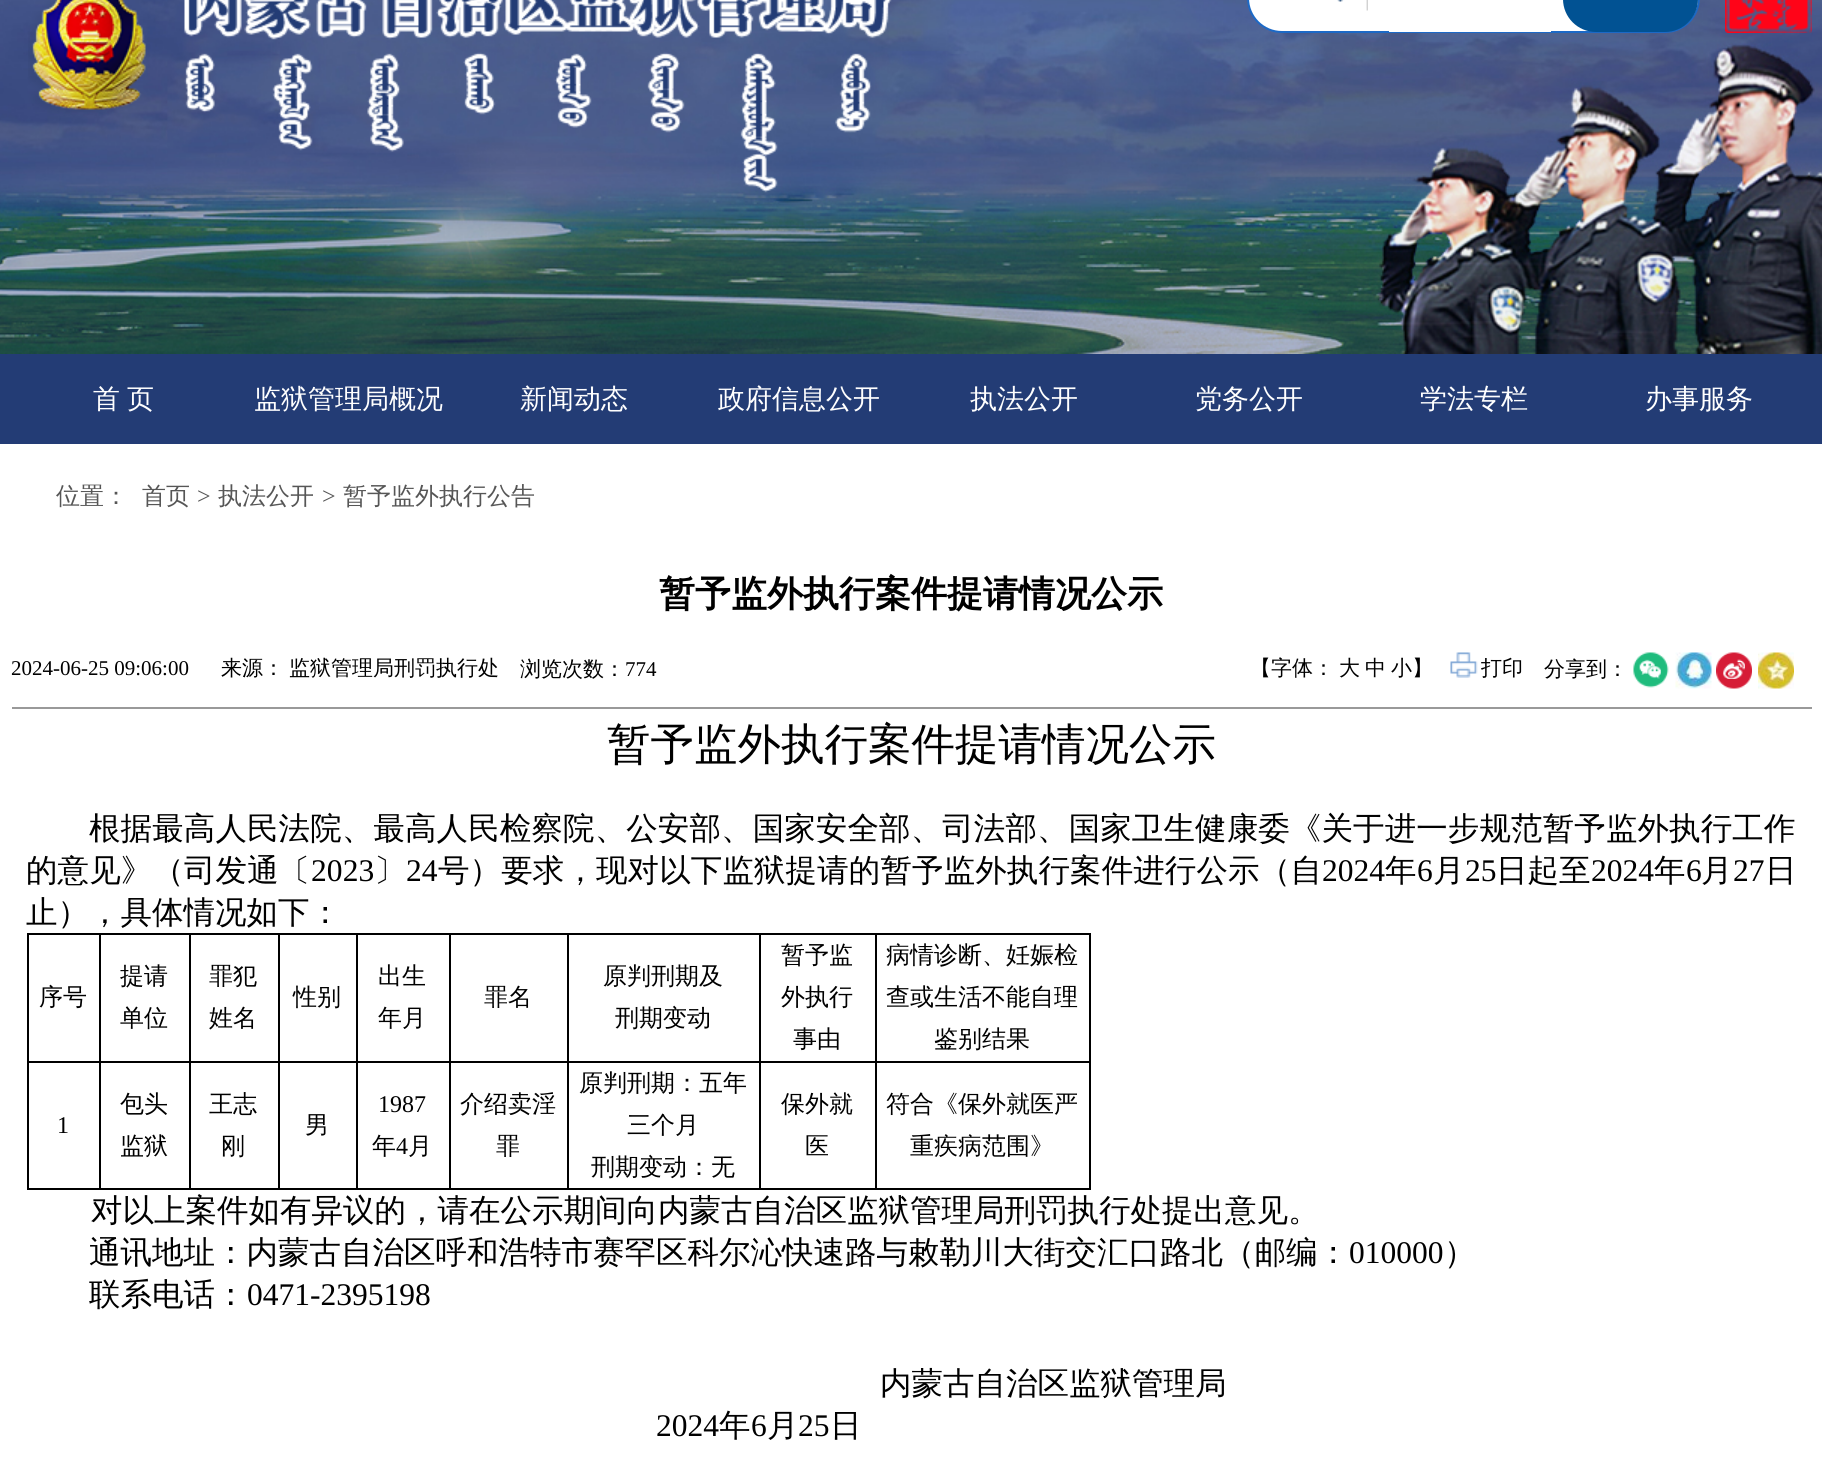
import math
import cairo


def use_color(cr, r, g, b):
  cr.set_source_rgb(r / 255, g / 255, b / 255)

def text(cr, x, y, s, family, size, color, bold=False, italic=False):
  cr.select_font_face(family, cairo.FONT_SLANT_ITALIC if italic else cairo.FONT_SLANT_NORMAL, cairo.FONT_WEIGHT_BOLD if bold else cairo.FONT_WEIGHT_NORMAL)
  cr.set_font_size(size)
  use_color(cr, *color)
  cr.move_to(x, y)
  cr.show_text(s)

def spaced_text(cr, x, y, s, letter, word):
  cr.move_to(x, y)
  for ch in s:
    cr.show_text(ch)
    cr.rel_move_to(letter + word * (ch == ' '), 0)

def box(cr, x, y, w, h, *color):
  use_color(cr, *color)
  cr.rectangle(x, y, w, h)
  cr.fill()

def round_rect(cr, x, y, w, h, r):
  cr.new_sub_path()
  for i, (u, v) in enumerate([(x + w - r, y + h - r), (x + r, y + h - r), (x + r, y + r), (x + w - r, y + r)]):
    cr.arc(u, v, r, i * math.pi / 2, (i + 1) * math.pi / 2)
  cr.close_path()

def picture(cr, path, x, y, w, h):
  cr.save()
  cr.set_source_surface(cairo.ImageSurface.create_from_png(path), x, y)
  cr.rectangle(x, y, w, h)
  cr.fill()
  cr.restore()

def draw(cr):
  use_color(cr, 255, 255, 255)
  cr.paint()
  picture(cr, "img_01.png", 0, 0, 1822, 354)
  picture(cr, "img_02.png", 28, 0, 864, 193)
  use_color(cr, 255, 255, 255)
  round_rect(cr, 1248, -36, 451, 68, 34)
  cr.fill_preserve()
  use_color(cr, 28, 105, 198)
  cr.stroke()
  picture(cr, "img_03.png", 1337, 0, 31, 11)
  use_color(cr, 1, 82, 147)
  round_rect(cr, 1563, -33, 135, 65, 33)
  cr.fill()
  box(cr, 1389, 31, 162, 1, 255, 255, 255)
  picture(cr, "img_04.png", 1725, 0, 87, 33)
  box(cr, 0, 354, 1822, 90, 35, 60, 117)
  box(cr, 12, 707, 1800, 2, 153, 153, 153)
  picture(cr, "img_05.png", 1450, 652, 28, 26)
  picture(cr, "img_06.png", 1633, 652, 36, 36)
  picture(cr, "img_07.png", 1675, 652, 37, 37)
  picture(cr, "img_08.png", 1716, 652, 36, 37)
  picture(cr, "img_09.png", 1758, 652, 36, 37)
  box(cr, 27, 933, 1064, 2, 0, 0, 0)
  box(cr, 1089, 1061, 2, 129, 0, 0, 0)
  box(cr, 1089, 933, 2, 129, 0, 0, 0)
  box(cr, 875, 1188, 216, 2, 0, 0, 0)
  box(cr, 875, 1061, 2, 129, 0, 0, 0)
  box(cr, 875, 1061, 216, 2, 0, 0, 0)
  box(cr, 875, 933, 2, 129, 0, 0, 0)
  box(cr, 759, 1188, 117, 2, 0, 0, 0)
  box(cr, 759, 1061, 2, 129, 0, 0, 0)
  box(cr, 759, 1061, 117, 2, 0, 0, 0)
  box(cr, 759, 933, 2, 129, 0, 0, 0)
  box(cr, 567, 1188, 194, 2, 0, 0, 0)
  box(cr, 567, 1061, 2, 129, 0, 0, 0)
  box(cr, 567, 1061, 194, 2, 0, 0, 0)
  box(cr, 567, 933, 2, 129, 0, 0, 0)
  box(cr, 449, 1188, 120, 2, 0, 0, 0)
  box(cr, 449, 1061, 2, 129, 0, 0, 0)
  box(cr, 449, 1061, 120, 2, 0, 0, 0)
  box(cr, 449, 933, 2, 129, 0, 0, 0)
  box(cr, 356, 1188, 94, 2, 0, 0, 0)
  box(cr, 356, 1061, 2, 129, 0, 0, 0)
  box(cr, 356, 1061, 94, 2, 0, 0, 0)
  box(cr, 356, 933, 2, 129, 0, 0, 0)
  box(cr, 278, 1188, 79, 2, 0, 0, 0)
  box(cr, 278, 1061, 2, 129, 0, 0, 0)
  box(cr, 278, 1061, 79, 2, 0, 0, 0)
  box(cr, 278, 933, 2, 129, 0, 0, 0)
  box(cr, 189, 1188, 90, 2, 0, 0, 0)
  box(cr, 189, 1061, 2, 129, 0, 0, 0)
  box(cr, 189, 1061, 90, 2, 0, 0, 0)
  box(cr, 189, 933, 2, 129, 0, 0, 0)
  box(cr, 99, 1188, 92, 2, 0, 0, 0)
  box(cr, 99, 1061, 2, 129, 0, 0, 0)
  box(cr, 99, 1061, 92, 2, 0, 0, 0)
  box(cr, 99, 933, 2, 129, 0, 0, 0)
  box(cr, 27, 1188, 74, 2, 0, 0, 0)
  box(cr, 27, 1061, 2, 129, 0, 0, 0)
  box(cr, 27, 1061, 74, 2, 0, 0, 0)
  box(cr, 27, 933, 2, 129, 0, 0, 0)
  cr.select_font_face("WenQuanYi Zen Hei Medium")
  cr.set_font_size(27)
  use_color(cr, 255, 255, 255)
  spaced_text(cr, 93, 408, "首 页", 0, -1)
  text(cr, 254, 408, "监狱管理局概况", "WenQuanYi Zen Hei Medium", 27, (255, 255, 255))
  text(cr, 520, 408, "新闻动态", "WenQuanYi Zen Hei Medium", 27, (255, 255, 255))
  text(cr, 718, 408, "政府信息公开", "WenQuanYi Zen Hei Medium", 27, (255, 255, 255))
  text(cr, 970, 408, "执法公开", "WenQuanYi Zen Hei Medium", 27, (255, 255, 255))
  text(cr, 1195, 408, "党务公开", "WenQuanYi Zen Hei Medium", 27, (255, 255, 255))
  text(cr, 1420, 408, "学法专栏", "WenQuanYi Zen Hei Medium", 27, (255, 255, 255))
  text(cr, 1645, 408, "办事服务", "WenQuanYi Zen Hei Medium", 27, (255, 255, 255))
  text(cr, 56, 504, "位置：", "WenQuanYi Zen Hei Medium", 24, (86, 86, 86))
  text(cr, 142, 504, "首页", "WenQuanYi Zen Hei Medium", 24, (86, 86, 86))
  text(cr, 197, 504, ">", "Liberation Serif", 24, (86, 86, 86))
  text(cr, 218, 504, "执法公开", "WenQuanYi Zen Hei Medium", 24, (86, 86, 86))
  text(cr, 322, 504, ">", "Liberation Serif", 24, (86, 86, 86))
  text(cr, 343, 504, "暂予监外执行公告", "WenQuanYi Zen Hei Medium", 24, (86, 86, 86))
  text(cr, 659, 606, "暂予监外执行案件提请情况公示", "WenQuanYi Zen Hei", 36, (0, 0, 0), bold=True)
  text(cr, 11, 675, "2024-06-25 09:06:00", "Liberation Serif", 21, (0, 0, 0))
  text(cr, 221, 675, "来源：", "WenQuanYi Zen Hei Medium", 21, (0, 0, 0))
  text(cr, 289, 675, "监狱管理局刑罚执行处", "WenQuanYi Zen Hei Medium", 21, (0, 0, 0))
  text(cr, 520, 676, "浏览次数：", "WenQuanYi Zen Hei Medium", 21, (0, 0, 0))
  text(cr, 625, 676, "774", "Liberation Serif", 21, (0, 0, 0))
  text(cr, 1250, 675, "【字体：", "WenQuanYi Zen Hei Medium", 21, (0, 0, 0))
  text(cr, 1339, 675, "大", "WenQuanYi Zen Hei Medium", 21, (0, 0, 0))
  text(cr, 1365, 675, "中", "WenQuanYi Zen Hei Medium", 21, (0, 0, 0))
  text(cr, 1391, 675, "小】", "WenQuanYi Zen Hei Medium", 21, (0, 0, 0))
  text(cr, 1481, 675, "打印", "WenQuanYi Zen Hei Medium", 21, (0, 0, 0))
  text(cr, 1544, 676, "分享到：", "WenQuanYi Zen Hei Medium", 21, (0, 0, 0))
  text(cr, 607, 759, "暂予监外执行案件提请情况公示", "WenQuanYi Zen Hei Medium", 43.5, (0, 0, 0))
  cr.set_font_size(31.5)
  spaced_text(cr, 89, 839, "根据最高人民法院、最高人民检察院、公安部、国家安全部、司法部、国家卫生健康委《关于进一步规范暂予监外执行工作", 0.1, 0)
  spaced_text(cr, 26, 881, "的意见》（司发通〔", 0.1, 0)
  cr.select_font_face("Liberation Serif")
  spaced_text(cr, 311, 881, "2023", 0.1, 0)
  cr.select_font_face("WenQuanYi Zen Hei Medium")
  spaced_text(cr, 374, 881, "〕", 0.1, 0)
  cr.select_font_face("Liberation Serif")
  spaced_text(cr, 406, 881, "24", 0.1, 0)
  cr.select_font_face("WenQuanYi Zen Hei Medium")
  spaced_text(cr, 438, 881, "号）要求，现对以下监狱提请的暂予监外执行案件进行公示", 0.1, 0)
  text(cr, 1259, 881, "（自", "WenQuanYi Zen Hei Medium", 31.5, (0, 0, 0))
  text(cr, 1322, 881, "2024", "Liberation Serif", 31.5, (0, 0, 0))
  text(cr, 1385, 881, "年", "WenQuanYi Zen Hei Medium", 31.5, (0, 0, 0))
  text(cr, 1417, 881, "6", "Liberation Serif", 31.5, (0, 0, 0))
  text(cr, 1433, 881, "月", "WenQuanYi Zen Hei Medium", 31.5, (0, 0, 0))
  text(cr, 1465, 881, "25", "Liberation Serif", 31.5, (0, 0, 0))
  text(cr, 1496, 881, "日起至", "WenQuanYi Zen Hei Medium", 31.5, (0, 0, 0))
  text(cr, 1591, 881, "2024", "Liberation Serif", 31.5, (0, 0, 0))
  text(cr, 1654, 881, "年", "WenQuanYi Zen Hei Medium", 31.5, (0, 0, 0))
  text(cr, 1686, 881, "6", "Liberation Serif", 31.5, (0, 0, 0))
  text(cr, 1701, 881, "月", "WenQuanYi Zen Hei Medium", 31.5, (0, 0, 0))
  text(cr, 1733, 881, "27", "Liberation Serif", 31.5, (0, 0, 0))
  text(cr, 1765, 881, "日", "WenQuanYi Zen Hei Medium", 31.5, (0, 0, 0))
  text(cr, 26, 923, "止），具体情况如下：", "WenQuanYi Zen Hei Medium", 31.5, (0, 0, 0))
  text(cr, 39, 1005, "序号", "WenQuanYi Zen Hei Medium", 24, (0, 0, 0))
  text(cr, 120, 984, "提请", "WenQuanYi Zen Hei Medium", 24, (0, 0, 0))
  text(cr, 120, 1026, "单位", "WenQuanYi Zen Hei Medium", 24, (0, 0, 0))
  text(cr, 209, 984, "罪犯", "WenQuanYi Zen Hei Medium", 24, (0, 0, 0))
  text(cr, 209, 1026, "姓名", "WenQuanYi Zen Hei Medium", 24, (0, 0, 0))
  text(cr, 293, 1005, "性别", "WenQuanYi Zen Hei Medium", 24, (0, 0, 0))
  text(cr, 378, 984, "出生", "WenQuanYi Zen Hei Medium", 24, (0, 0, 0))
  text(cr, 378, 1026, "年月", "WenQuanYi Zen Hei Medium", 24, (0, 0, 0))
  text(cr, 484, 1005, "罪名", "WenQuanYi Zen Hei Medium", 24, (0, 0, 0))
  text(cr, 603, 984, "原判刑期及", "WenQuanYi Zen Hei Medium", 24, (0, 0, 0))
  text(cr, 615, 1026, "刑期变动", "WenQuanYi Zen Hei Medium", 24, (0, 0, 0))
  text(cr, 781, 963, "暂予监", "WenQuanYi Zen Hei Medium", 24, (0, 0, 0))
  text(cr, 781, 1005, "外执行", "WenQuanYi Zen Hei Medium", 24, (0, 0, 0))
  text(cr, 793, 1047, "事由", "WenQuanYi Zen Hei Medium", 24, (0, 0, 0))
  text(cr, 886, 963, "病情诊断、妊娠检", "WenQuanYi Zen Hei Medium", 24, (0, 0, 0))
  text(cr, 886, 1005, "查或生活不能自理", "WenQuanYi Zen Hei Medium", 24, (0, 0, 0))
  text(cr, 934, 1047, "鉴别结果", "WenQuanYi Zen Hei Medium", 24, (0, 0, 0))
  text(cr, 57, 1133, "1", "Liberation Serif", 24, (0, 0, 0))
  text(cr, 120, 1112, "包头", "WenQuanYi Zen Hei Medium", 24, (0, 0, 0))
  text(cr, 120, 1154, "监狱", "WenQuanYi Zen Hei Medium", 24, (0, 0, 0))
  text(cr, 209, 1112, "王志", "WenQuanYi Zen Hei Medium", 24, (0, 0, 0))
  text(cr, 221, 1154, "刚", "WenQuanYi Zen Hei Medium", 24, (0, 0, 0))
  text(cr, 305, 1133, "男", "WenQuanYi Zen Hei Medium", 24, (0, 0, 0))
  text(cr, 378, 1112, "1987", "Liberation Serif", 24, (0, 0, 0))
  text(cr, 372, 1154, "年", "WenQuanYi Zen Hei Medium", 24, (0, 0, 0))
  text(cr, 396, 1154, "4", "Liberation Serif", 24, (0, 0, 0))
  text(cr, 408, 1154, "月", "WenQuanYi Zen Hei Medium", 24, (0, 0, 0))
  text(cr, 460, 1112, "介绍卖淫", "WenQuanYi Zen Hei Medium", 24, (0, 0, 0))
  text(cr, 496, 1154, "罪", "WenQuanYi Zen Hei Medium", 24, (0, 0, 0))
  text(cr, 579, 1091, "原判刑期：五年", "WenQuanYi Zen Hei Medium", 24, (0, 0, 0))
  text(cr, 627, 1133, "三个月", "WenQuanYi Zen Hei Medium", 24, (0, 0, 0))
  text(cr, 591, 1175, "刑期变动：无", "WenQuanYi Zen Hei Medium", 24, (0, 0, 0))
  text(cr, 781, 1112, "保外就", "WenQuanYi Zen Hei Medium", 24, (0, 0, 0))
  text(cr, 805, 1154, "医", "WenQuanYi Zen Hei Medium", 24, (0, 0, 0))
  text(cr, 886, 1112, "符合《保外就医严", "WenQuanYi Zen Hei Medium", 24, (0, 0, 0))
  text(cr, 910, 1154, "重疾病范围》", "WenQuanYi Zen Hei Medium", 24, (0, 0, 0))
  text(cr, 91, 1221, "对以上案件如有异议的，请在公示期间向内蒙古自治区监狱管理局刑罚执行处提出意见。", "WenQuanYi Zen Hei Medium", 31.5, (0, 0, 0))
  text(cr, 89, 1263, "通讯地址：内蒙古自治区呼和浩特市赛罕区科尔沁快速路与敕勒川大街交汇口路北（邮编：", "WenQuanYi Zen Hei Medium", 31.5, (0, 0, 0))
  text(cr, 1349, 1263, "010000", "Liberation Serif", 31.5, (0, 0, 0))
  text(cr, 1444, 1263, "）", "WenQuanYi Zen Hei Medium", 31.5, (0, 0, 0))
  text(cr, 89, 1305, "联系电话：", "WenQuanYi Zen Hei Medium", 31.5, (0, 0, 0))
  text(cr, 247, 1305, "0471-2395198", "Liberation Serif", 31.5, (0, 0, 0))
  text(cr, 880, 1394, "内蒙古自治区监狱管理局", "WenQuanYi Zen Hei Medium", 31.5, (0, 0, 0))
  text(cr, 656, 1436, "2024", "Liberation Serif", 31.5, (0, 0, 0))
  text(cr, 719, 1436, "年", "WenQuanYi Zen Hei Medium", 31.5, (0, 0, 0))
  text(cr, 751, 1436, "6", "Liberation Serif", 31.5, (0, 0, 0))
  text(cr, 767, 1436, "月", "WenQuanYi Zen Hei Medium", 31.5, (0, 0, 0))
  text(cr, 798, 1436, "25", "Liberation Serif", 31.5, (0, 0, 0))
  text(cr, 830, 1436, "日", "WenQuanYi Zen Hei Medium", 31.5, (0, 0, 0))


surface = cairo.ImageSurface(cairo.FORMAT_RGB24, 1822, 1466)
cr = cairo.Context(surface)
options = cairo.FontOptions()
options.set_hint_metrics(cairo.HINT_METRICS_OFF)
options.set_hint_style(cairo.HINT_STYLE_NONE)
cr.set_font_options(options)
cr.set_miter_limit(4)
draw(cr)
surface.write_to_png("out.png")
